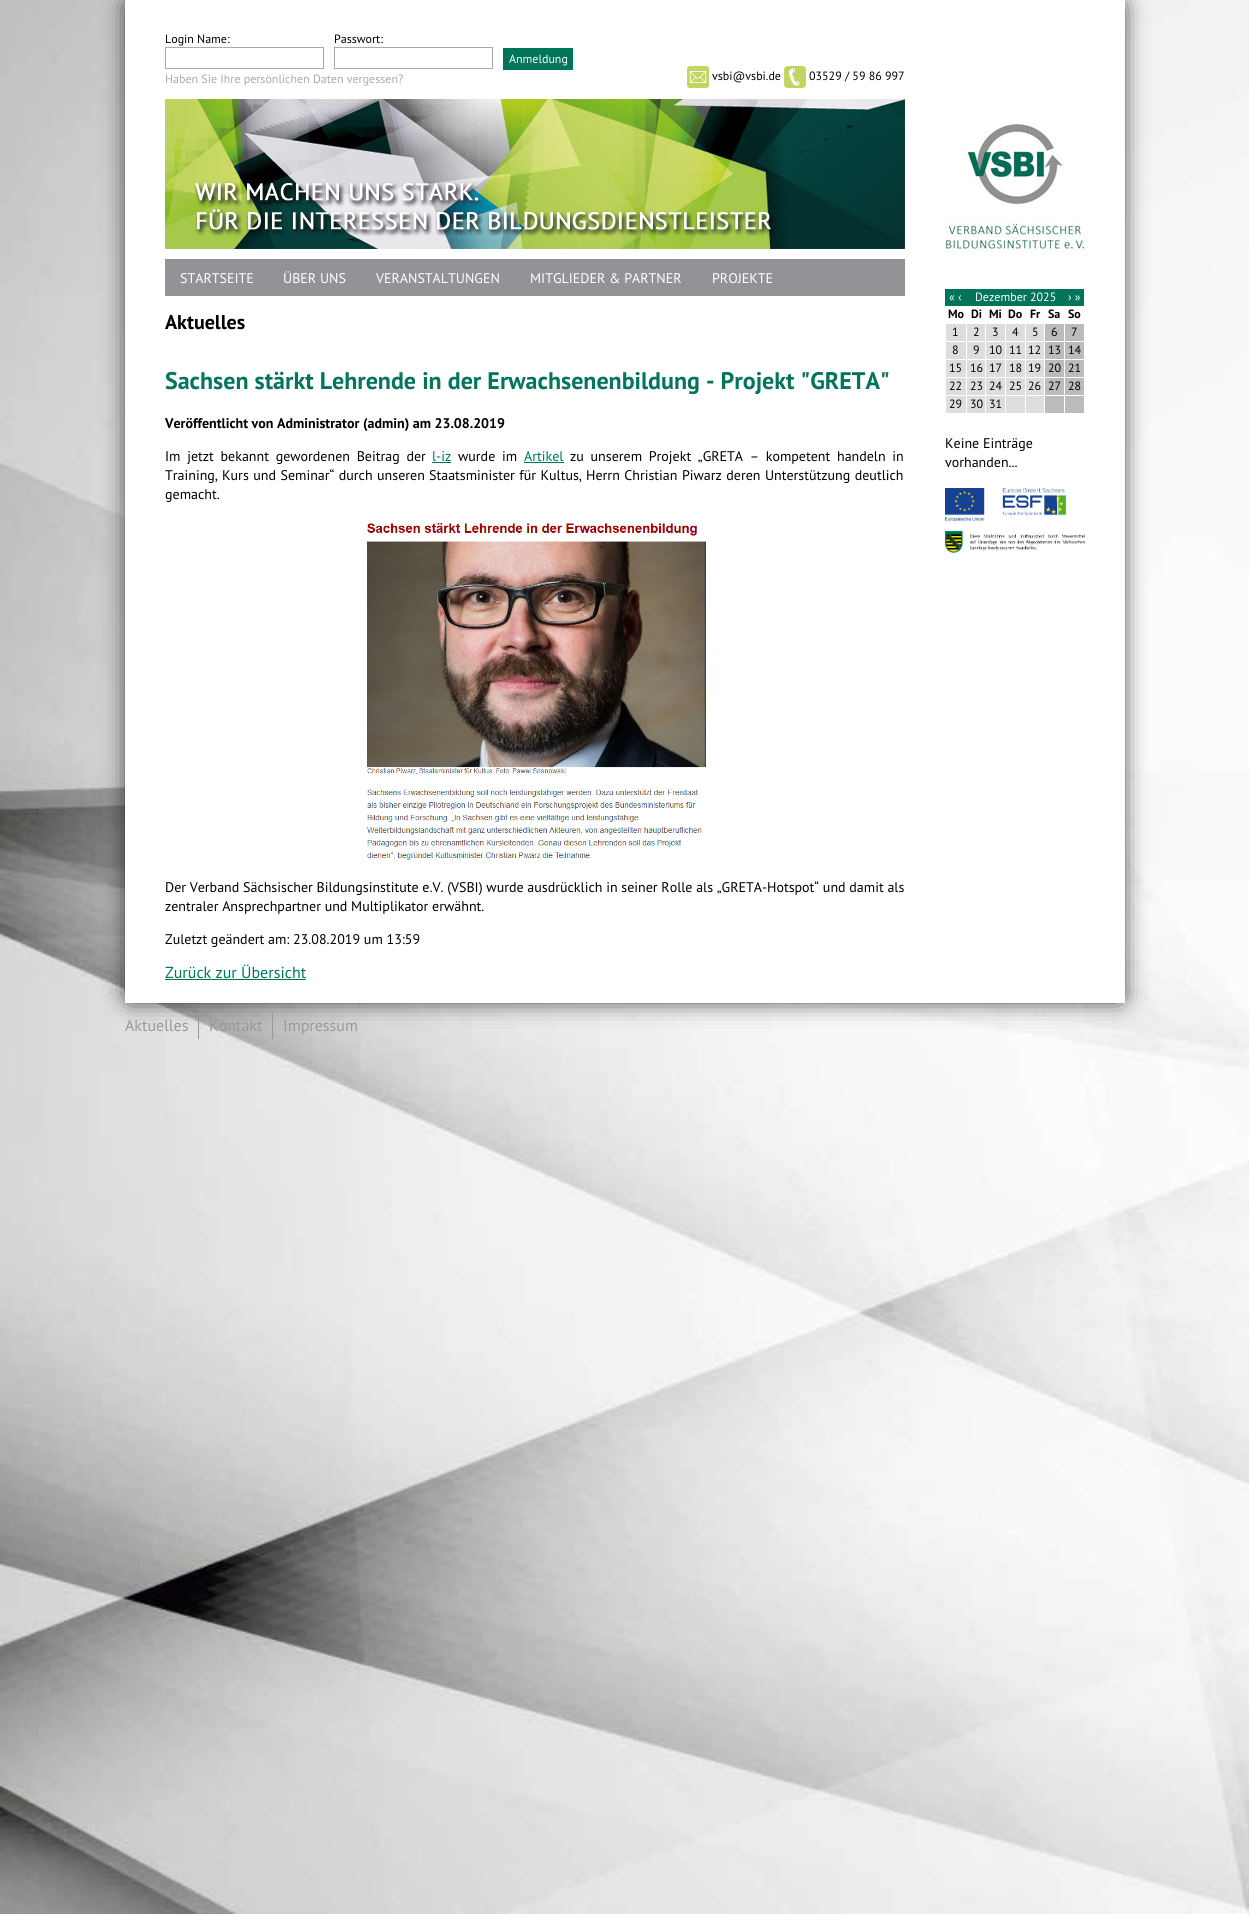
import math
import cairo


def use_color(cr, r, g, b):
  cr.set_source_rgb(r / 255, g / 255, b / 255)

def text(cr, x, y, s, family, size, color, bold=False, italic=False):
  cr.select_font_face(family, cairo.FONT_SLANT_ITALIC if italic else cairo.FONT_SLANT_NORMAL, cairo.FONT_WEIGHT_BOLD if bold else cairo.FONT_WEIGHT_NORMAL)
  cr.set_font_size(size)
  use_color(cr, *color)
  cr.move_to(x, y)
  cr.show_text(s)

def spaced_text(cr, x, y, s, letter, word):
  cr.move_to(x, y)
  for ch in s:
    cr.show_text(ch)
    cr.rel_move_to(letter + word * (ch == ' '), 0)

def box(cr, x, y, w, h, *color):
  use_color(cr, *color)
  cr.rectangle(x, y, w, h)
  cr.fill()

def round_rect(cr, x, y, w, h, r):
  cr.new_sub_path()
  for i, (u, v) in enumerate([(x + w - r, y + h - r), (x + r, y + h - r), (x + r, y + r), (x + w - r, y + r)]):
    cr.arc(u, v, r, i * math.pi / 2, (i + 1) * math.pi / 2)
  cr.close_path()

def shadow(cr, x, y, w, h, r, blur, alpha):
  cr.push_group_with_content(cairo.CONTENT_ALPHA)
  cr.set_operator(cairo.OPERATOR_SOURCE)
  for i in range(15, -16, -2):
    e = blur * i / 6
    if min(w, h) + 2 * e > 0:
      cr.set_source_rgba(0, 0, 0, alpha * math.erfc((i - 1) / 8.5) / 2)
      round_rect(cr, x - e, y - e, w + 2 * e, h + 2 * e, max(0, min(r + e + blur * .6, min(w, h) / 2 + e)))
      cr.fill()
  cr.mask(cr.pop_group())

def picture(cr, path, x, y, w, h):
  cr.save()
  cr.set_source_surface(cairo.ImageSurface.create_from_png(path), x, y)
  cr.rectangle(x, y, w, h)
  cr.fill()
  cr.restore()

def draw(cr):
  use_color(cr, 255, 255, 255)
  cr.paint()
  picture(cr, "img_01.png", 0, 0, 1249, 1914)
  use_color(cr, 0, 0, 0)
  shadow(cr, 130, 5, 990, 993, 0, 12.5, 1)
  box(cr, 125, 0, 1000, 1003, 255, 255, 255)
  cr.rectangle(165.5, 47.5, 158, 21)
  use_color(cr, 170, 170, 170)
  cr.set_line_width(1)
  cr.stroke()
  cr.rectangle(334.5, 47.5, 158, 21)
  cr.stroke()
  box(cr, 503, 48, 70, 22, 0, 117, 90)
  picture(cr, "img_02.png", 687, 66, 22, 22)
  picture(cr, "img_03.png", 784, 66, 22, 22)
  picture(cr, "img_04.png", 165, 99, 740, 150)
  box(cr, 165, 259, 740, 37, 146, 147, 151)
  box(cr, 432, 462, 19, 1, 0, 117, 90)
  box(cr, 524, 462, 40, 1, 0, 117, 90)
  picture(cr, "img_05.png", 367, 523, 339, 337)
  box(cr, 165, 979, 141, 1, 0, 117, 90)
  picture(cr, "img_06.png", 945, 124, 140, 128)
  box(cr, 945, 289, 139, 17, 0, 117, 90)
  box(cr, 946, 324, 20, 17, 221, 221, 221)
  box(cr, 967, 324, 18, 17, 221, 221, 221)
  box(cr, 986, 324, 19, 17, 221, 221, 221)
  box(cr, 1006, 324, 19, 17, 221, 221, 221)
  box(cr, 1026, 324, 18, 17, 221, 221, 221)
  box(cr, 1045, 324, 19, 17, 187, 187, 187)
  box(cr, 1065, 324, 19, 17, 187, 187, 187)
  box(cr, 946, 342, 20, 17, 221, 221, 221)
  box(cr, 967, 342, 18, 17, 221, 221, 221)
  box(cr, 986, 342, 19, 17, 221, 221, 221)
  box(cr, 1006, 342, 19, 17, 221, 221, 221)
  box(cr, 1026, 342, 18, 17, 221, 221, 221)
  box(cr, 1045, 342, 19, 17, 187, 187, 187)
  box(cr, 1065, 342, 19, 17, 187, 187, 187)
  box(cr, 946, 360, 20, 17, 221, 221, 221)
  box(cr, 967, 360, 18, 17, 221, 221, 221)
  box(cr, 986, 360, 19, 17, 221, 221, 221)
  box(cr, 1006, 360, 19, 17, 221, 221, 221)
  box(cr, 1026, 360, 18, 17, 221, 221, 221)
  box(cr, 1045, 360, 19, 17, 187, 187, 187)
  box(cr, 1065, 360, 19, 17, 187, 187, 187)
  box(cr, 946, 378, 20, 17, 221, 221, 221)
  box(cr, 967, 378, 18, 17, 221, 221, 221)
  box(cr, 986, 378, 19, 17, 221, 221, 221)
  box(cr, 1006, 378, 19, 17, 221, 221, 221)
  box(cr, 1026, 378, 18, 17, 221, 221, 221)
  box(cr, 1045, 378, 19, 17, 187, 187, 187)
  box(cr, 1065, 378, 19, 17, 187, 187, 187)
  box(cr, 946, 396, 20, 17, 221, 221, 221)
  box(cr, 967, 396, 18, 17, 221, 221, 221)
  box(cr, 986, 396, 19, 17, 221, 221, 221)
  box(cr, 1006, 396, 19, 17, 221, 221, 221)
  box(cr, 1026, 396, 18, 17, 221, 221, 221)
  box(cr, 1045, 396, 19, 17, 187, 187, 187)
  box(cr, 1065, 396, 19, 17, 187, 187, 187)
  picture(cr, "img_07.png", 945, 488, 140, 65)
  box(cr, 198, 1013, 1, 26, 153, 153, 153)
  box(cr, 272, 1013, 1, 26, 153, 153, 153)
  text(cr, 165, 43, "Login Name:", "PT Sans", 12, (0, 0, 0))
  text(cr, 334, 43, "Passwort:", "PT Sans", 12, (0, 0, 0))
  text(cr, 509, 63, "Anmeldung", "PT Sans", 12, (255, 255, 255))
  text(cr, 165, 83, "Haben Sie Ihre persönlichen Daten vergessen?", "PT Sans", 12, (170, 170, 170))
  text(cr, 712, 80, "vsbi@vsbi.de", "PT Sans", 12, (0, 0, 0))
  text(cr, 809, 80, "03529 / 59 86 997", "PT Sans", 12, (0, 0, 0))
  text(cr, 180, 283, "STARTSEITE", "PT Sans", 14, (255, 255, 255))
  text(cr, 283, 283, "ÜBER UNS", "PT Sans", 14, (255, 255, 255))
  text(cr, 376, 283, "VERANSTALTUNGEN", "PT Sans", 14, (255, 255, 255))
  text(cr, 530, 283, "MITGLIEDER & PARTNER", "PT Sans", 14, (255, 255, 255))
  text(cr, 712, 283, "PROJEKTE", "PT Sans", 14, (255, 255, 255))
  text(cr, 165, 329, "Aktuelles", "PT Sans", 20, (0, 0, 0), bold=True)
  text(cr, 165, 389, "Sachsen stärkt Lehrende in der Erwachsenenbildung - Projekt \"GRETA\"", "PT Sans", 24, (0, 117, 90), bold=True)
  text(cr, 165, 428, "Veröffentlicht von Administrator (admin) am 23.08.2019", "PT Sans", 14, (0, 0, 0), bold=True)
  cr.select_font_face("PT Sans")
  spaced_text(cr, 165, 461, "Im jetzt bekannt gewordenen Beitrag der", 0, 3)
  text(cr, 432, 461, "l-iz", "PT Sans", 14, (0, 117, 90))
  use_color(cr, 0, 0, 0)
  spaced_text(cr, 458, 461, "wurde im", 0, 3)
  text(cr, 524, 461, "Artikel", "PT Sans", 14, (0, 117, 90))
  use_color(cr, 0, 0, 0)
  spaced_text(cr, 570, 461, "zu unserem Projekt „GRETA – kompetent handeln in", 0, 3)
  spaced_text(cr, 165, 480, "Training, Kurs und Seminar“ durch unseren", 0, 0.75)
  spaced_text(cr, 429, 480, "Staatsminister für Kultus, Herrn Christian Piwarz deren Unterstützung deutlich", 0, 0.75)
  text(cr, 165, 499, "gemacht.", "PT Sans", 14, (0, 0, 0))
  text(cr, 165, 892, "Der Verband Sächsischer Bildungsinstitute e.V. (VSBI) wurde ausdrücklich in seiner Rolle als „GRETA-Hotspot“ und damit als", "PT Sans", 14, (0, 0, 0))
  text(cr, 165, 911, "zentraler Ansprechpartner und Multiplikator erwähnt.", "PT Sans", 14, (0, 0, 0))
  text(cr, 165, 944, "Zuletzt geändert am: 23.08.2019 um 13:59", "PT Sans", 14, (0, 0, 0))
  text(cr, 165, 978, "Zurück zur Übersicht", "PT Sans", 16, (0, 117, 90))
  text(cr, 949, 301, "« ‹", "PT Sans", 12, (255, 255, 255))
  text(cr, 975, 301, "Dezember 2025", "PT Sans", 12, (255, 255, 255))
  text(cr, 1068, 301, "› »", "PT Sans", 12, (255, 255, 255))
  text(cr, 948, 318, "Mo", "PT Sans", 12, (0, 0, 0), bold=True)
  text(cr, 971, 318, "Di", "PT Sans", 12, (0, 0, 0), bold=True)
  text(cr, 989, 318, "Mi", "PT Sans", 12, (0, 0, 0), bold=True)
  text(cr, 1008, 318, "Do", "PT Sans", 12, (0, 0, 0), bold=True)
  text(cr, 1030, 318, "Fr", "PT Sans", 12, (0, 0, 0), bold=True)
  text(cr, 1048, 318, "Sa", "PT Sans", 12, (0, 0, 0), bold=True)
  text(cr, 1068, 318, "So", "PT Sans", 12, (0, 0, 0), bold=True)
  text(cr, 952, 336, "1", "PT Sans", 12, (0, 0, 0))
  text(cr, 973, 336, "2", "PT Sans", 12, (0, 0, 0))
  text(cr, 992, 336, "3", "PT Sans", 12, (0, 0, 0))
  text(cr, 1012, 336, "4", "PT Sans", 12, (0, 0, 0))
  text(cr, 1032, 336, "5", "PT Sans", 12, (0, 0, 0))
  text(cr, 1051, 336, "6", "PT Sans", 12, (0, 0, 0))
  text(cr, 1071, 336, "7", "PT Sans", 12, (0, 0, 0))
  text(cr, 952, 354, "8", "PT Sans", 12, (0, 0, 0))
  text(cr, 973, 354, "9", "PT Sans", 12, (0, 0, 0))
  text(cr, 989, 354, "10", "PT Sans", 12, (0, 0, 0))
  text(cr, 1009, 354, "11", "PT Sans", 12, (0, 0, 0))
  text(cr, 1028, 354, "12", "PT Sans", 12, (0, 0, 0))
  text(cr, 1048, 354, "13", "PT Sans", 12, (0, 0, 0))
  text(cr, 1068, 354, "14", "PT Sans", 12, (0, 0, 0))
  text(cr, 949, 372, "15", "PT Sans", 12, (0, 0, 0))
  text(cr, 970, 372, "16", "PT Sans", 12, (0, 0, 0))
  text(cr, 989, 372, "17", "PT Sans", 12, (0, 0, 0))
  text(cr, 1009, 372, "18", "PT Sans", 12, (0, 0, 0))
  text(cr, 1028, 372, "19", "PT Sans", 12, (0, 0, 0))
  text(cr, 1048, 372, "20", "PT Sans", 12, (0, 0, 0))
  text(cr, 1068, 372, "21", "PT Sans", 12, (0, 0, 0))
  text(cr, 949, 390, "22", "PT Sans", 12, (0, 0, 0))
  text(cr, 970, 390, "23", "PT Sans", 12, (0, 0, 0))
  text(cr, 989, 390, "24", "PT Sans", 12, (0, 0, 0))
  text(cr, 1009, 390, "25", "PT Sans", 12, (0, 0, 0))
  text(cr, 1028, 390, "26", "PT Sans", 12, (0, 0, 0))
  text(cr, 1048, 390, "27", "PT Sans", 12, (0, 0, 0))
  text(cr, 1068, 390, "28", "PT Sans", 12, (0, 0, 0))
  text(cr, 949, 408, "29", "PT Sans", 12, (0, 0, 0))
  text(cr, 970, 408, "30", "PT Sans", 12, (0, 0, 0))
  text(cr, 989, 408, "31", "PT Sans", 12, (0, 0, 0))
  text(cr, 945, 448, "Keine Einträge", "PT Sans", 14, (0, 0, 0))
  text(cr, 945, 467, "vorhanden...", "PT Sans", 14, (0, 0, 0))
  text(cr, 125, 1031, "Aktuelles", "PT Sans", 16, (153, 153, 153))
  text(cr, 209, 1031, "Kontakt", "PT Sans", 16, (153, 153, 153))
  text(cr, 283, 1031, "Impressum", "PT Sans", 16, (153, 153, 153))


surface = cairo.ImageSurface(cairo.FORMAT_RGB24, 1249, 1914)
cr = cairo.Context(surface)
options = cairo.FontOptions()
options.set_hint_metrics(cairo.HINT_METRICS_OFF)
options.set_hint_style(cairo.HINT_STYLE_NONE)
cr.set_font_options(options)
cr.set_miter_limit(4)
draw(cr)
surface.write_to_png("out.png")
